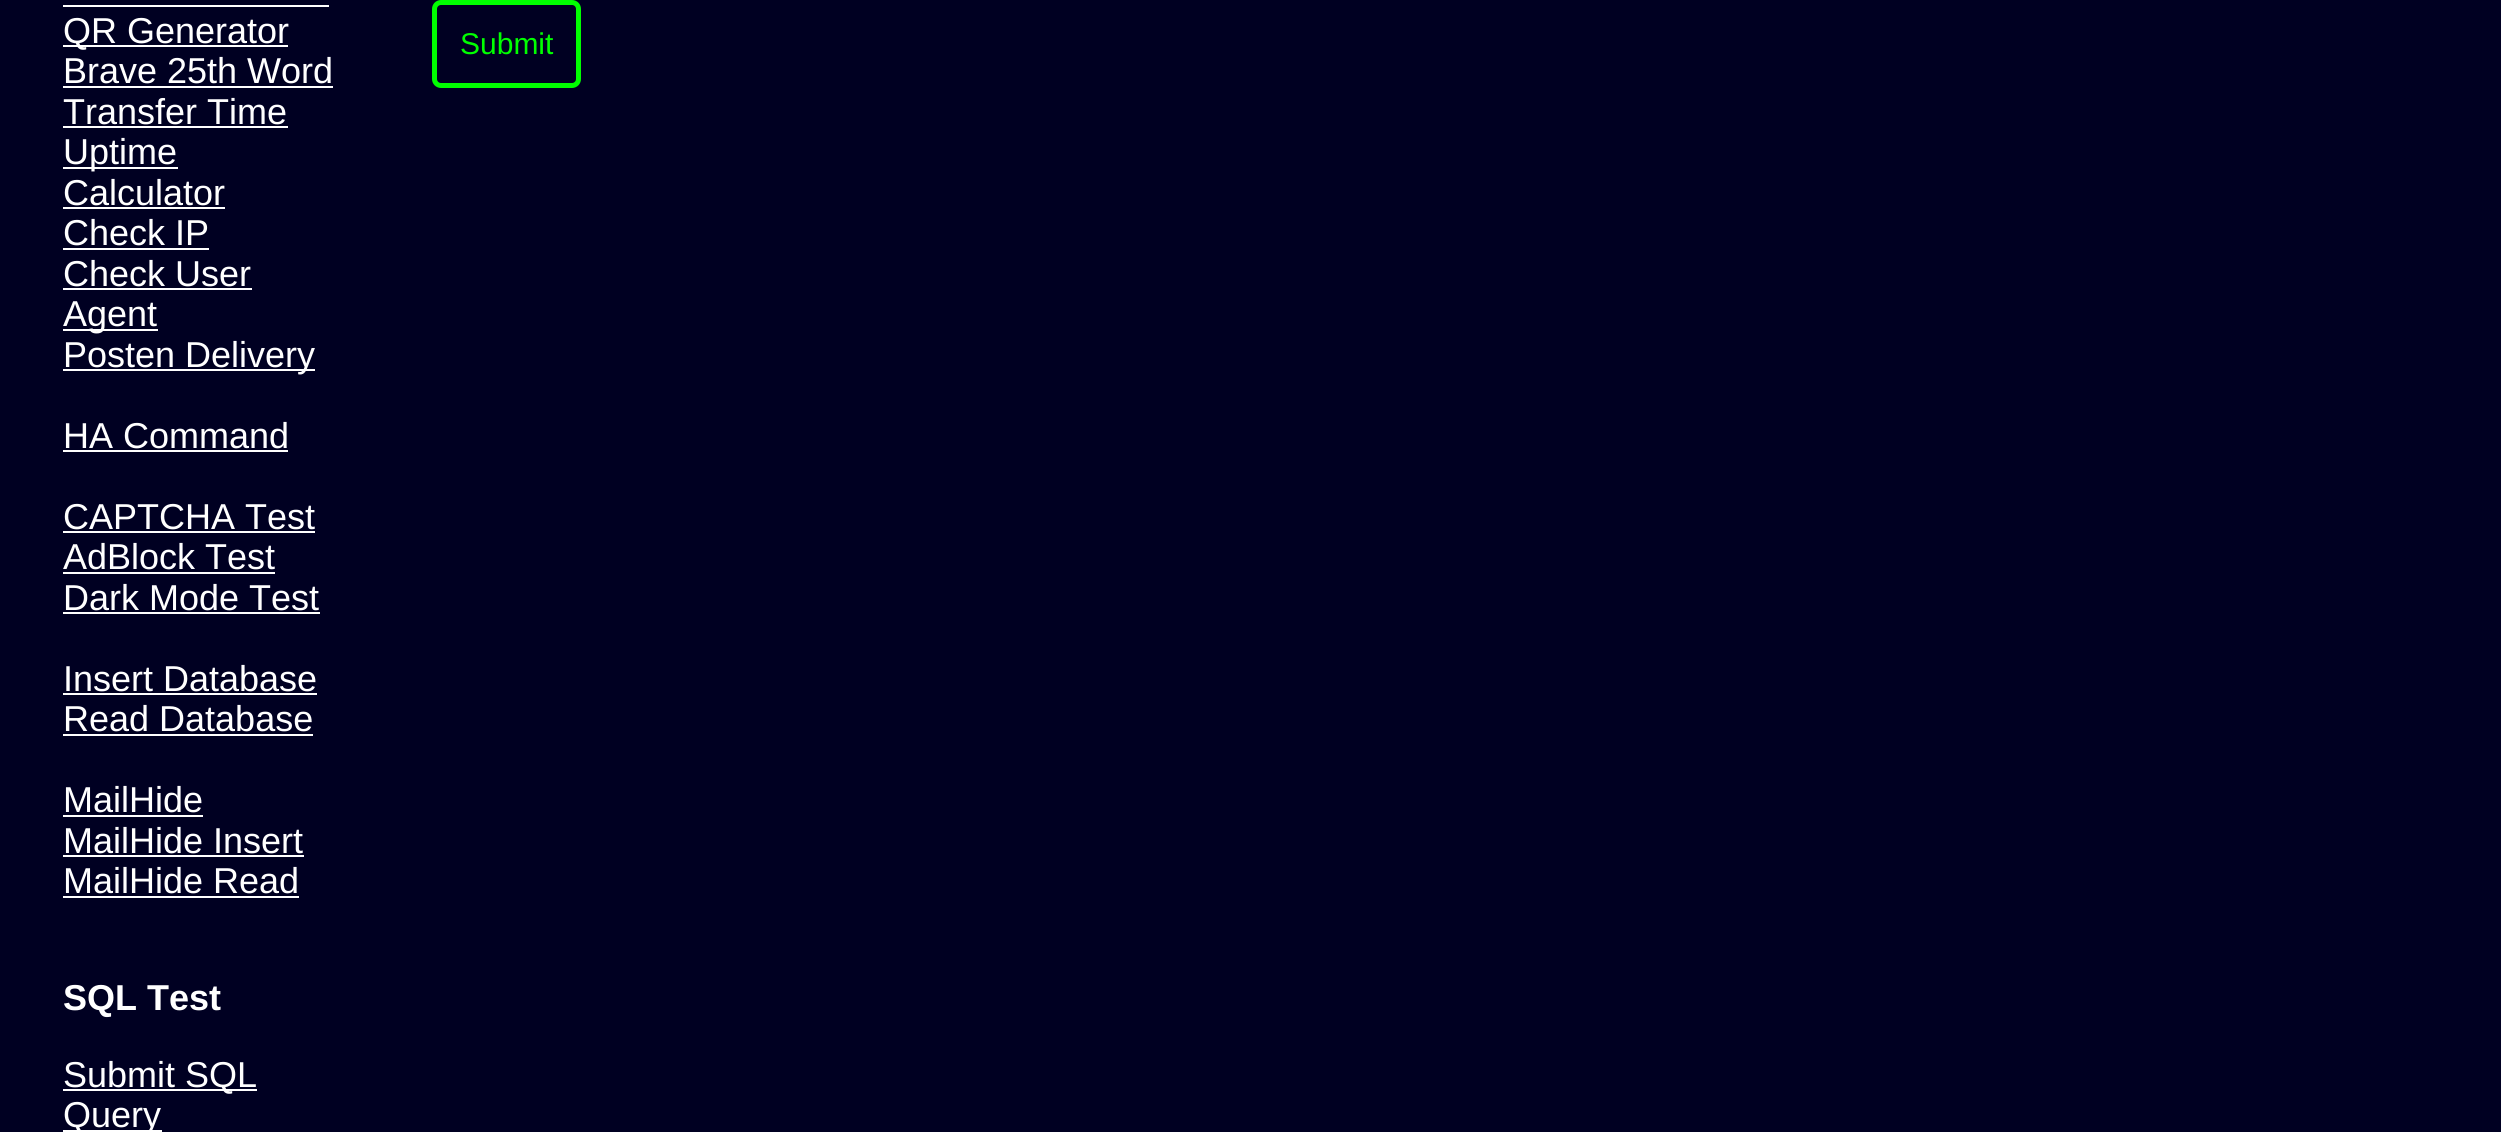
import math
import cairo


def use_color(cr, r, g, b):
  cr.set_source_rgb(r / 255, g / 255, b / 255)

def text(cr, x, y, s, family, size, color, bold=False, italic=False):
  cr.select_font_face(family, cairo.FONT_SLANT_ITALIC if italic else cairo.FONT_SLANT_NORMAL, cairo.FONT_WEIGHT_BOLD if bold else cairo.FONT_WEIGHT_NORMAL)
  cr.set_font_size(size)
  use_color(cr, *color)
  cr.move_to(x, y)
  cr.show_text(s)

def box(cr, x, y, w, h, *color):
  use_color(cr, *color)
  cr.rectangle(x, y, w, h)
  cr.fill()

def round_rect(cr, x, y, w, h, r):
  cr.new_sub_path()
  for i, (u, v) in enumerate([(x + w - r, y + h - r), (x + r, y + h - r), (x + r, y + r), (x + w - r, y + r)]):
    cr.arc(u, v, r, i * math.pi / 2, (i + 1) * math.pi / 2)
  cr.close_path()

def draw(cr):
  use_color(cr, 0, 0, 34)
  cr.paint()
  box(cr, 63, 5, 266, 2, 255, 255, 255)
  box(cr, 63, 45, 225, 2, 255, 255, 255)
  box(cr, 63, 86, 270, 2, 255, 255, 255)
  box(cr, 63, 126, 225, 2, 255, 255, 255)
  box(cr, 63, 167, 115, 2, 255, 255, 255)
  box(cr, 63, 207, 162, 2, 255, 255, 255)
  box(cr, 63, 248, 146, 2, 255, 255, 255)
  box(cr, 63, 288, 189, 2, 255, 255, 255)
  box(cr, 63, 329, 95, 2, 255, 255, 255)
  box(cr, 63, 369, 252, 2, 255, 255, 255)
  box(cr, 63, 450, 225, 2, 255, 255, 255)
  box(cr, 63, 531, 252, 2, 255, 255, 255)
  box(cr, 63, 572, 212, 2, 255, 255, 255)
  box(cr, 63, 612, 257, 2, 255, 255, 255)
  box(cr, 63, 693, 254, 2, 255, 255, 255)
  box(cr, 63, 734, 250, 2, 255, 255, 255)
  box(cr, 63, 815, 140, 2, 255, 255, 255)
  box(cr, 63, 855, 241, 2, 255, 255, 255)
  box(cr, 63, 896, 236, 2, 255, 255, 255)
  box(cr, 63, 1089, 194, 2, 255, 255, 255)
  box(cr, 63, 1130, 99, 2, 255, 255, 255)
  round_rect(cr, 434.5, 2.5, 144, 83, 6.5)
  use_color(cr, 0, 255, 0)
  cr.set_line_width(5)
  cr.stroke()
  text(cr, 63, 43, "QR Generator", "Liberation Sans", 36, (255, 255, 255))
  text(cr, 63, 83, "Brave 25th Word", "Liberation Sans", 36, (255, 255, 255))
  text(cr, 63, 124, "Transfer Time", "Liberation Sans", 36, (255, 255, 255))
  text(cr, 63, 164, "Uptime", "Liberation Sans", 36, (255, 255, 255))
  text(cr, 63, 205, "Calculator", "Liberation Sans", 36, (255, 255, 255))
  text(cr, 63, 245, "Check IP", "Liberation Sans", 36, (255, 255, 255))
  text(cr, 63, 286, "Check User", "Liberation Sans", 36, (255, 255, 255))
  text(cr, 63, 326, "Agent", "Liberation Sans", 36, (255, 255, 255))
  text(cr, 63, 367, "Posten Delivery", "Liberation Sans", 36, (255, 255, 255))
  text(cr, 63, 448, "HA Command", "Liberation Sans", 36, (255, 255, 255))
  text(cr, 63, 529, "CAPTCHA Test", "Liberation Sans", 36, (255, 255, 255))
  text(cr, 63, 569, "AdBlock Test", "Liberation Sans", 36, (255, 255, 255))
  text(cr, 63, 610, "Dark Mode Test", "Liberation Sans", 36, (255, 255, 255))
  text(cr, 63, 691, "Insert Database", "Liberation Sans", 36, (255, 255, 255))
  text(cr, 63, 731, "Read Database", "Liberation Sans", 36, (255, 255, 255))
  text(cr, 63, 812, "MailHide", "Liberation Sans", 36, (255, 255, 255))
  text(cr, 63, 853, "MailHide Insert", "Liberation Sans", 36, (255, 255, 255))
  text(cr, 63, 893, "MailHide Read", "Liberation Sans", 36, (255, 255, 255))
  text(cr, 63, 1010, "SQL Test", "Liberation Sans", 36, (255, 255, 255), bold=True)
  text(cr, 63, 1087, "Submit SQL", "Liberation Sans", 36, (255, 255, 255))
  text(cr, 63, 1127, "Query", "Liberation Sans", 36, (255, 255, 255))
  text(cr, 460, 54, "Submit", "Liberation Sans", 30, (0, 255, 0))


surface = cairo.ImageSurface(cairo.FORMAT_RGB24, 2501, 1132)
cr = cairo.Context(surface)
options = cairo.FontOptions()
options.set_hint_metrics(cairo.HINT_METRICS_OFF)
options.set_hint_style(cairo.HINT_STYLE_NONE)
cr.set_font_options(options)
cr.set_miter_limit(4)
draw(cr)
surface.write_to_png("out.png")
